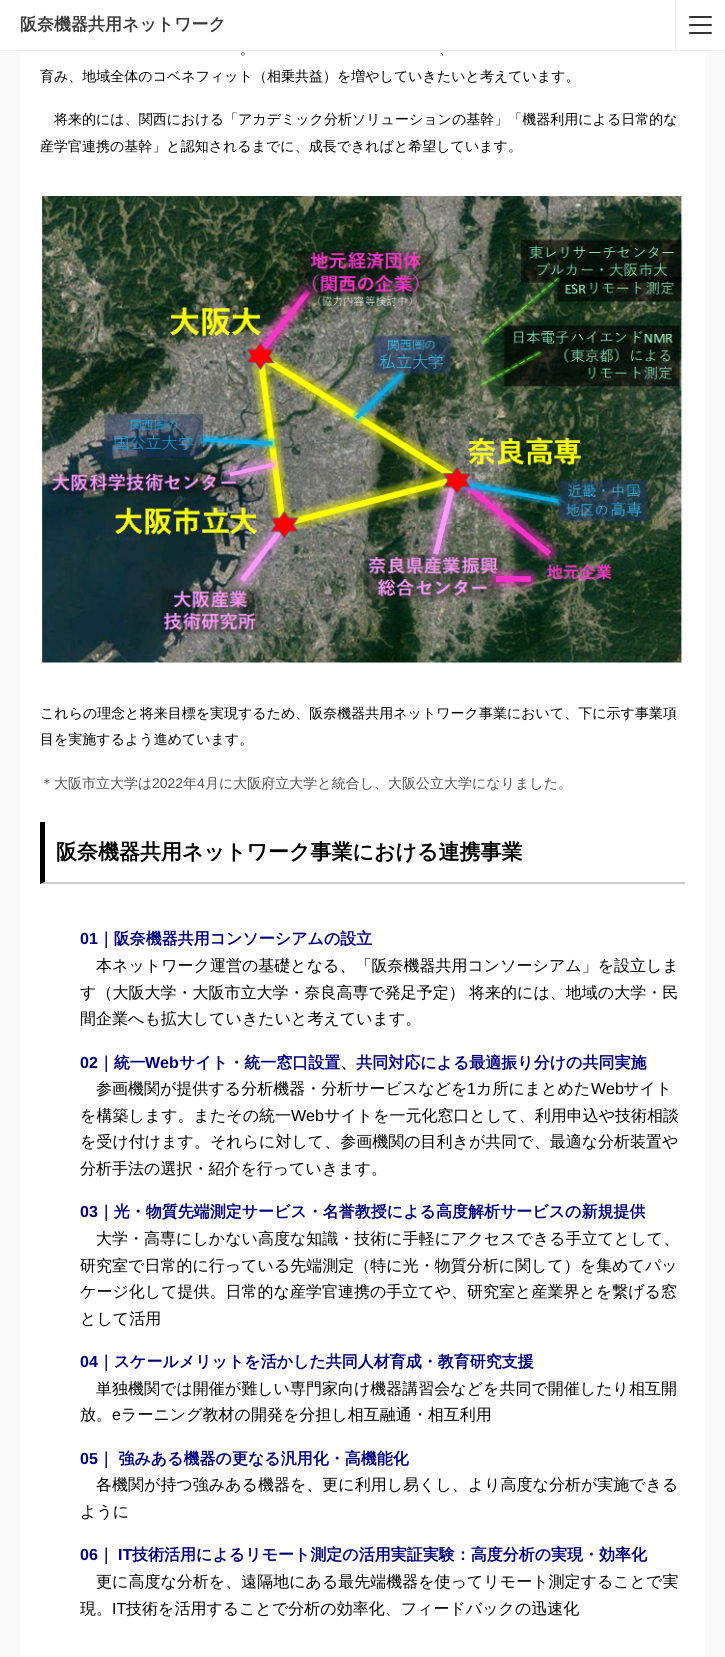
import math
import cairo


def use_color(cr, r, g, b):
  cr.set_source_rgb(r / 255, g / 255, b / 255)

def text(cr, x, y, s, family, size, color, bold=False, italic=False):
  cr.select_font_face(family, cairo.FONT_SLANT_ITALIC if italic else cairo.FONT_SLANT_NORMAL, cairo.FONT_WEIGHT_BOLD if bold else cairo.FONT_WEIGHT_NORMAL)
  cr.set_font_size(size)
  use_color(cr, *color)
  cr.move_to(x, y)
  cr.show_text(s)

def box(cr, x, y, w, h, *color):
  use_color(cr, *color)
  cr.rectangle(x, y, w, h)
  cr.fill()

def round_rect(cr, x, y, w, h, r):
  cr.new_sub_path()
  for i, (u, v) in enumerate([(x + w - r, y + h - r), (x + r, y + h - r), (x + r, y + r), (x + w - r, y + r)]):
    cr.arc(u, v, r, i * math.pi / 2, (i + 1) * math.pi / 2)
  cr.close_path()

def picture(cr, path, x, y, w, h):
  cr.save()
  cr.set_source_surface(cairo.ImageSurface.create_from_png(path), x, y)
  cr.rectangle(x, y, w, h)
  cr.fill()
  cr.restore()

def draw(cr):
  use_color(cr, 250, 250, 250)
  cr.paint()
  use_color(cr, 255, 255, 255)
  round_rect(cr, 20, -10, 685, 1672, 10)
  cr.fill()
  box(cr, 0, 50, 725, 1, 238, 238, 238)
  box(cr, 0, 0, 725, 50, 255, 255, 255)
  box(cr, 675, 0, 1, 50, 238, 238, 238)
  use_color(cr, 51, 51, 51)
  round_rect(cr, 689, 16, 23, 2, 1)
  cr.fill()
  round_rect(cr, 689, 24, 23, 2, 1)
  cr.fill()
  round_rect(cr, 689, 32, 23, 2, 1)
  cr.fill()
  picture(cr, "img_01.png", 42, 196, 641, 467)
  use_color(cr, 204, 204, 204)
  cr.new_path()
  cr.move_to(685, 884)
  cr.line_to(40, 884)
  cr.line_to(45, 882)
  cr.line_to(685, 882)
  cr.close_path()
  cr.fill()
  use_color(cr, 0, 0, 0)
  cr.new_path()
  cr.move_to(40, 884)
  cr.line_to(40, 822)
  cr.line_to(45, 822)
  cr.line_to(45, 882)
  cr.close_path()
  cr.fill()
  text(cr, 20, 30, "阪奈機器共用ネットワーク", "WenQuanYi Zen Hei", 17, (60, 60, 60), bold=True)
  text(cr, 240, 54, "。", "WenQuanYi Zen Hei Medium", 14, (0, 0, 0))
  text(cr, 439, 54, "、", "WenQuanYi Zen Hei Medium", 14, (0, 0, 0))
  text(cr, 40, 81, "育み、地域全体のコベネフィット（相乗共益）を増やしていきたいと考えています。", "WenQuanYi Zen Hei Medium", 14, (0, 0, 0))
  text(cr, 54, 124, "将来的には、関西における「アカデミック分析ソリューションの基幹」「機器利用による日常的な", "WenQuanYi Zen Hei Medium", 14, (0, 0, 0))
  text(cr, 40, 151, "産学官連携の基幹」と認知されるまでに、成長できればと希望しています。", "WenQuanYi Zen Hei Medium", 14, (0, 0, 0))
  text(cr, 40, 718, "これらの理念と将来目標を実現するため、阪奈機器共用ネットワーク事業において、下に示す事業項", "WenQuanYi Zen Hei Medium", 14, (0, 0, 0))
  text(cr, 40, 744, "目を実施するよう進めています。", "WenQuanYi Zen Hei Medium", 14, (0, 0, 0))
  text(cr, 40, 788, "＊大阪市立大学は", "WenQuanYi Zen Hei Medium", 14, (80, 80, 80))
  text(cr, 152, 788, "2022", "Liberation Sans", 14, (80, 80, 80))
  text(cr, 183, 788, "年", "WenQuanYi Zen Hei Medium", 14, (80, 80, 80))
  text(cr, 197, 788, "4", "Liberation Sans", 14, (80, 80, 80))
  text(cr, 205, 788, "月に大阪府立大学と統合し、大阪公立大学になりました。", "WenQuanYi Zen Hei Medium", 14, (80, 80, 80))
  text(cr, 56, 859, "阪奈機器共用ネットワーク事業における連携事業", "WenQuanYi Zen Hei", 21, (0, 0, 0), bold=True)
  text(cr, 80, 944, "01", "Liberation Sans", 16, (0, 0, 128), bold=True)
  text(cr, 98, 944, "｜阪奈機器共用コンソーシアムの設立", "WenQuanYi Zen Hei", 16, (0, 0, 128), bold=True)
  text(cr, 96, 971, "本ネットワーク運営の基礎となる、「阪奈機器共用コンソーシアム」を設立しま", "WenQuanYi Zen Hei Medium", 16, (0, 0, 0))
  text(cr, 80, 998, "す（大阪大学・大阪市立大学・奈良高専で発足予定）", "WenQuanYi Zen Hei Medium", 16, (0, 0, 0))
  text(cr, 469, 998, "将来的には、地域の大学・民", "WenQuanYi Zen Hei Medium", 16, (0, 0, 0))
  text(cr, 80, 1024, "間企業へも拡大していきたいと考えています。", "WenQuanYi Zen Hei Medium", 16, (0, 0, 0))
  text(cr, 80, 1068, "02", "Liberation Sans", 16, (0, 0, 128), bold=True)
  text(cr, 98, 1068, "｜統一", "WenQuanYi Zen Hei", 16, (0, 0, 128), bold=True)
  text(cr, 145, 1068, "Web", "Liberation Sans", 16, (0, 0, 128), bold=True)
  text(cr, 179, 1068, "サイト・統一窓口設置、共同対応による最適振り分けの共同実施", "WenQuanYi Zen Hei", 16, (0, 0, 128), bold=True)
  text(cr, 96, 1094, "参画機関が提供する分析機器・分析サービスなどを", "WenQuanYi Zen Hei Medium", 16, (0, 0, 0))
  text(cr, 467, 1094, "1", "Liberation Sans", 16, (0, 0, 0))
  text(cr, 476, 1094, "カ所にまとめた", "WenQuanYi Zen Hei Medium", 16, (0, 0, 0))
  text(cr, 591, 1094, "Web", "Liberation Sans", 16, (0, 0, 0))
  text(cr, 623, 1094, "サイト", "WenQuanYi Zen Hei Medium", 16, (0, 0, 0))
  text(cr, 80, 1121, "を構築します。またその統一", "WenQuanYi Zen Hei Medium", 16, (0, 0, 0))
  text(cr, 291, 1121, "Web", "Liberation Sans", 16, (0, 0, 0))
  text(cr, 324, 1121, "サイトを一元化窓口として、利用申込や技術相談", "WenQuanYi Zen Hei Medium", 16, (0, 0, 0))
  text(cr, 80, 1147, "を受け付けます。それらに対して、参画機関の目利きが共同で、最適な分析装置や", "WenQuanYi Zen Hei Medium", 16, (0, 0, 0))
  text(cr, 80, 1174, "分析手法の選択・紹介を行っていきます。", "WenQuanYi Zen Hei Medium", 16, (0, 0, 0))
  text(cr, 80, 1217, "03", "Liberation Sans", 16, (0, 0, 128), bold=True)
  text(cr, 98, 1217, "｜光・物質先端測定サービス・名誉教授による高度解析サービスの新規提供", "WenQuanYi Zen Hei", 16, (0, 0, 128), bold=True)
  text(cr, 96, 1244, "大学・高専にしかない高度な知識・技術に手軽にアクセスできる手立てとして、", "WenQuanYi Zen Hei Medium", 16, (0, 0, 0))
  text(cr, 80, 1271, "研究室で日常的に行っている先端測定（特に光・物質分析に関して）を集めてパッ", "WenQuanYi Zen Hei Medium", 16, (0, 0, 0))
  text(cr, 80, 1297, "ケージ化して提供。日常的な産学官連携の手立てや、研究室と産業界とを繋げる窓", "WenQuanYi Zen Hei Medium", 16, (0, 0, 0))
  text(cr, 80, 1324, "として活用", "WenQuanYi Zen Hei Medium", 16, (0, 0, 0))
  text(cr, 80, 1367, "04", "Liberation Sans", 16, (0, 0, 128), bold=True)
  text(cr, 98, 1367, "｜スケールメリットを活かした共同人材育成・教育研究支援", "WenQuanYi Zen Hei", 16, (0, 0, 128), bold=True)
  text(cr, 96, 1394, "単独機関では開催が難しい専門家向け機器講習会などを共同で開催したり相互開", "WenQuanYi Zen Hei Medium", 16, (0, 0, 0))
  text(cr, 80, 1420, "放。", "WenQuanYi Zen Hei Medium", 16, (0, 0, 0))
  text(cr, 112, 1420, "e", "Liberation Sans", 16, (0, 0, 0))
  text(cr, 121, 1420, "ラーニング教材の開発を分担し相互融通・相互利用", "WenQuanYi Zen Hei Medium", 16, (0, 0, 0))
  text(cr, 80, 1464, "05", "Liberation Sans", 16, (0, 0, 128), bold=True)
  text(cr, 98, 1464, "｜ 強みある機器の更なる汎用化・高機能化", "WenQuanYi Zen Hei", 16, (0, 0, 128), bold=True)
  text(cr, 96, 1490, "各機関が持つ強みある機器を、更に利用し易くし、より高度な分析が実施できる", "WenQuanYi Zen Hei Medium", 16, (0, 0, 0))
  text(cr, 80, 1517, "ように", "WenQuanYi Zen Hei Medium", 16, (0, 0, 0))
  text(cr, 80, 1560, "06", "Liberation Sans", 16, (0, 0, 128), bold=True)
  text(cr, 98, 1560, "｜", "WenQuanYi Zen Hei", 16, (0, 0, 128), bold=True)
  text(cr, 118, 1560, "IT", "Liberation Sans", 16, (0, 0, 128), bold=True)
  text(cr, 132, 1560, "技術活用によるリモート測定の活用実証実験：高度分析の実現・効率化", "WenQuanYi Zen Hei", 16, (0, 0, 128), bold=True)
  text(cr, 96, 1587, "更に高度な分析を、遠隔地にある最先端機器を使ってリモート測定することで実", "WenQuanYi Zen Hei Medium", 16, (0, 0, 0))
  text(cr, 80, 1614, "現。", "WenQuanYi Zen Hei Medium", 16, (0, 0, 0))
  text(cr, 112, 1614, "IT", "Liberation Sans", 16, (0, 0, 0))
  text(cr, 126, 1614, "技術を活用することで分析の効率化、フィードバックの迅速化", "WenQuanYi Zen Hei Medium", 16, (0, 0, 0))


surface = cairo.ImageSurface(cairo.FORMAT_RGB24, 725, 1657)
cr = cairo.Context(surface)
options = cairo.FontOptions()
options.set_hint_metrics(cairo.HINT_METRICS_OFF)
options.set_hint_style(cairo.HINT_STYLE_NONE)
cr.set_font_options(options)
cr.set_miter_limit(4)
draw(cr)
surface.write_to_png("out.png")
